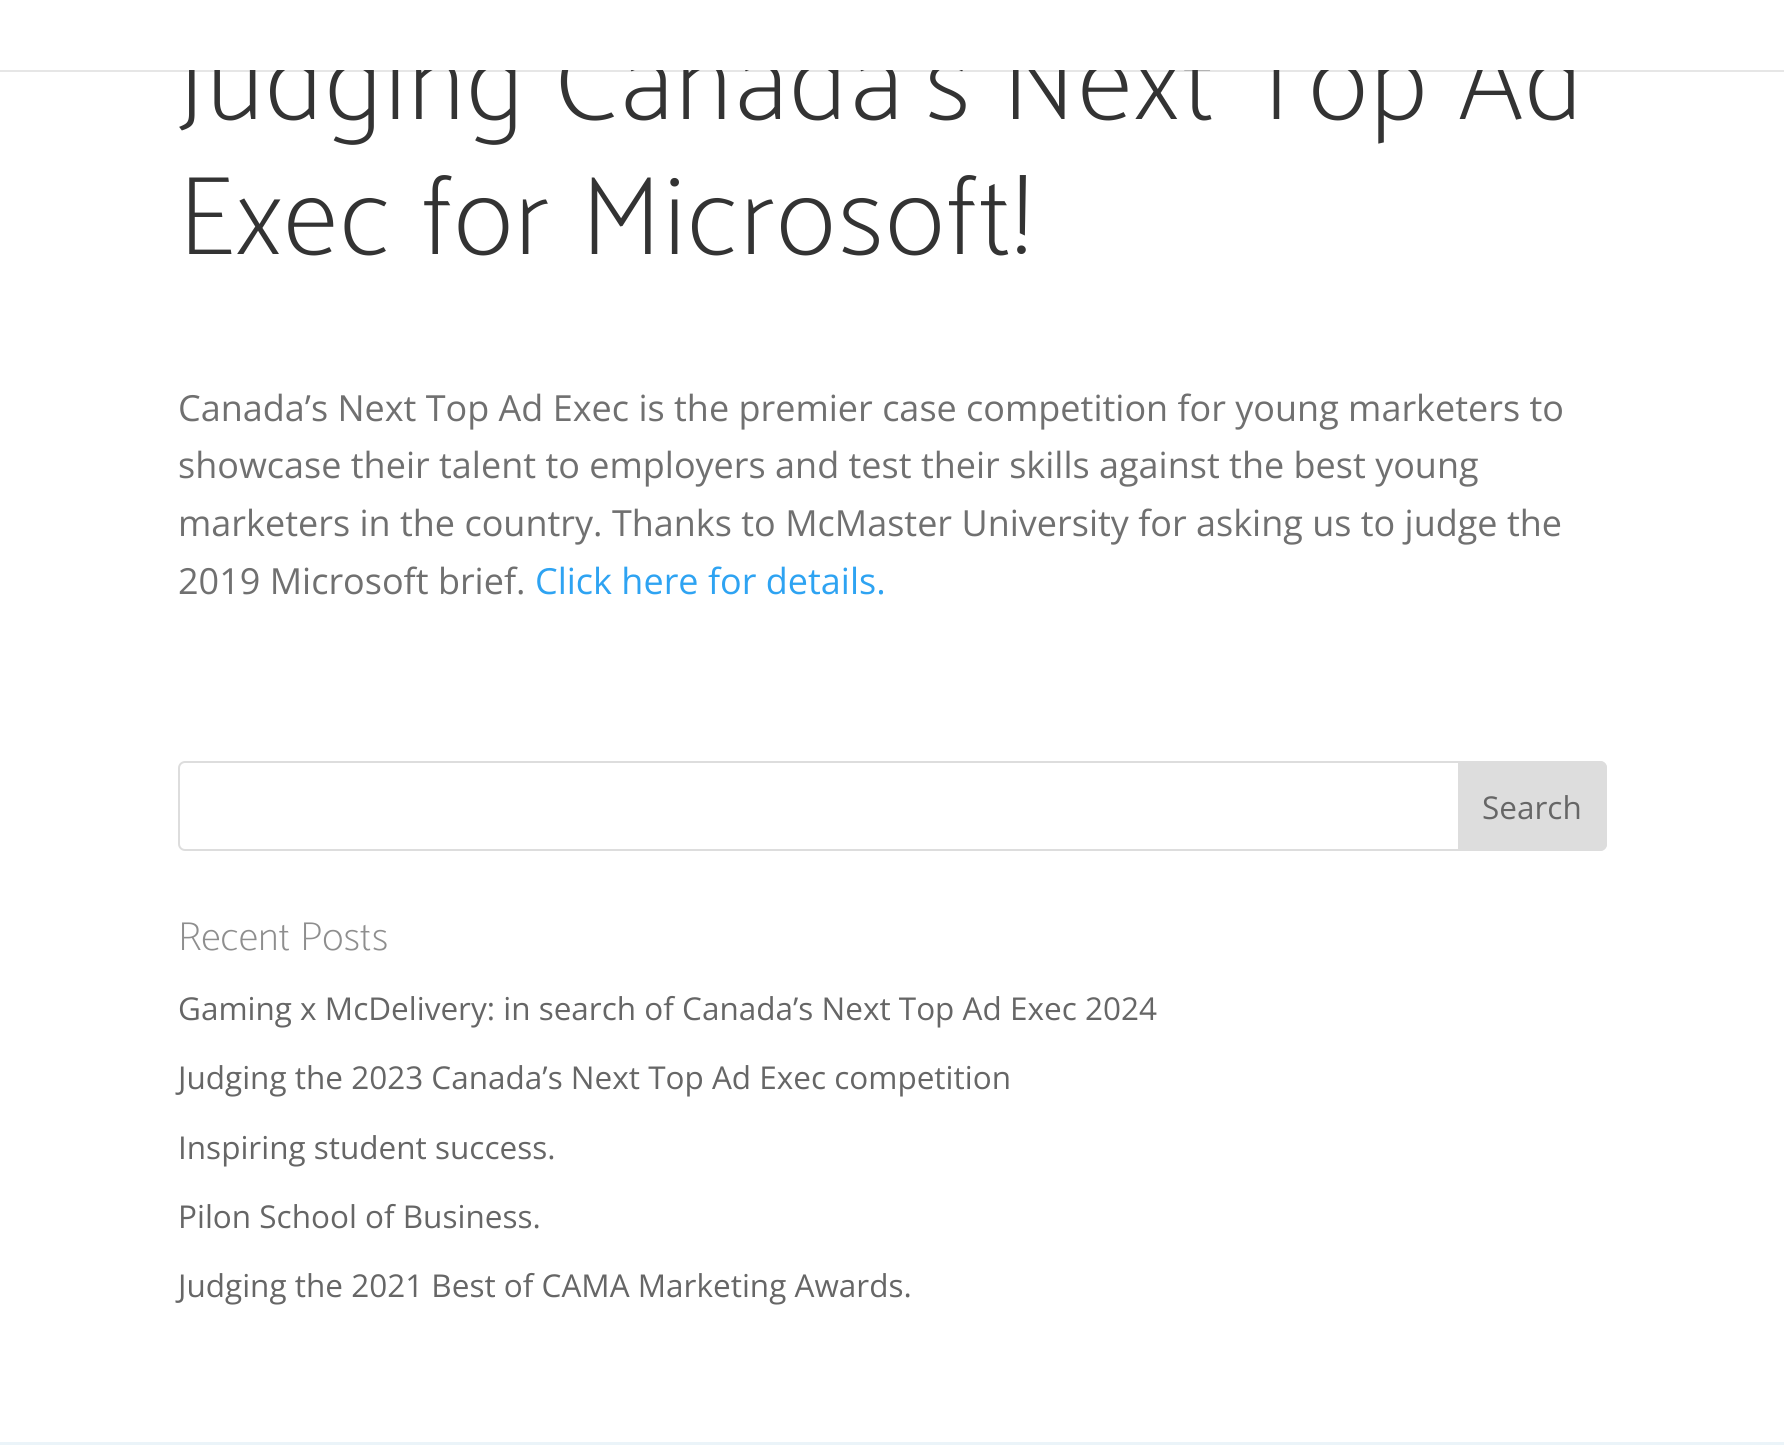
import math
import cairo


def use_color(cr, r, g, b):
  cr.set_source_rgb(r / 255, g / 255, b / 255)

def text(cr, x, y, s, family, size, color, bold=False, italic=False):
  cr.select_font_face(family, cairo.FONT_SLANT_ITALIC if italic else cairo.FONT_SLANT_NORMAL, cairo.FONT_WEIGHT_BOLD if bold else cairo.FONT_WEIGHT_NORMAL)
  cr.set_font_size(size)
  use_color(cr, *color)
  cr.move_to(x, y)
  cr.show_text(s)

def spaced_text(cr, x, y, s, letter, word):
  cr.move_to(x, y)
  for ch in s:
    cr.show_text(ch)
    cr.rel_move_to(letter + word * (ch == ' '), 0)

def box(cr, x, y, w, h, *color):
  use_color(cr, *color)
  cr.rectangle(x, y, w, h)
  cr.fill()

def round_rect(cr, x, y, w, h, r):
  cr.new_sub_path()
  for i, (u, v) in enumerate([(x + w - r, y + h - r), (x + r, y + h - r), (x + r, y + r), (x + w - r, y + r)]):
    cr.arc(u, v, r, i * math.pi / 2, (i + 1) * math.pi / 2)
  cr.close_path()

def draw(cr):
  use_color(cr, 255, 255, 255)
  cr.paint()
  cr.set_source_rgba(0, 0, 0, 0.1)
  cr.rectangle(0, 70, 1784, 2)
  cr.fill()
  round_rect(cr, 179, 762, 1427, 88, 6)
  use_color(cr, 221, 221, 221)
  cr.stroke()
  cr.new_path()
  cr.move_to(1459, 762)
  cr.line_to(1600, 762)
  cr.curve_to(1603.5, 762, 1606, 764.5, 1606, 768)
  cr.line_to(1606, 844)
  cr.curve_to(1606, 847.5, 1603.5, 850, 1600, 850)
  cr.line_to(1459, 850)
  cr.close_path()
  cr.fill_preserve()
  cr.stroke()
  box(cr, 0, 1442, 1784, 3, 235, 244, 249)
  cr.select_font_face("Catamaran Thin")
  cr.set_font_size(112.5)
  use_color(cr, 51, 51, 51)
  spaced_text(cr, 178, 119, "Judging Canada’s Next Top Ad", 2.25, 0)
  box(cr, 189, 39, 1386, 31, 255, 255, 255)
  use_color(cr, 51, 51, 51)
  spaced_text(cr, 178, 254, "Exec for Microsoft!", 2.25, 0)
  text(cr, 178, 421, "Canada’s Next Top Ad Exec is the premier case competition for young marketers to", "Open Sans", 36, (112, 112, 112))
  text(cr, 178, 478, "showcase their talent to employers and test their skills against the best young", "Open Sans", 36, (112, 112, 112))
  text(cr, 178, 536, "marketers in the country. Thanks to McMaster University for asking us to judge the", "Open Sans", 36, (112, 112, 112))
  text(cr, 178, 594, "2019 Microsoft brief.", "Open Sans", 36, (112, 112, 112))
  text(cr, 535, 594, "Click here for details.", "Open Sans", 36, (46, 163, 242))
  text(cr, 1482, 819, "Search", "Open Sans", 31.5, (102, 102, 102))
  text(cr, 178, 950, "Recent Posts", "Catamaran Thin", 40.5, (142, 142, 142))
  text(cr, 178, 1020, "Gaming x McDelivery: in search of Canada’s Next Top Ad Exec 2024", "Open Sans", 31.5, (102, 102, 102))
  text(cr, 178, 1089, "Judging the 2023 Canada’s Next Top Ad Exec competition", "Open Sans", 31.5, (102, 102, 102))
  text(cr, 178, 1159, "Inspiring student success.", "Open Sans", 31.5, (102, 102, 102))
  text(cr, 178, 1228, "Pilon School of Business.", "Open Sans", 31.5, (102, 102, 102))
  text(cr, 178, 1297, "Judging the 2021 Best of CAMA Marketing Awards.", "Open Sans", 31.5, (102, 102, 102))


surface = cairo.ImageSurface(cairo.FORMAT_RGB24, 1784, 1445)
cr = cairo.Context(surface)
options = cairo.FontOptions()
options.set_hint_metrics(cairo.HINT_METRICS_OFF)
options.set_hint_style(cairo.HINT_STYLE_NONE)
cr.set_font_options(options)
cr.set_miter_limit(4)
draw(cr)
surface.write_to_png("out.png")
